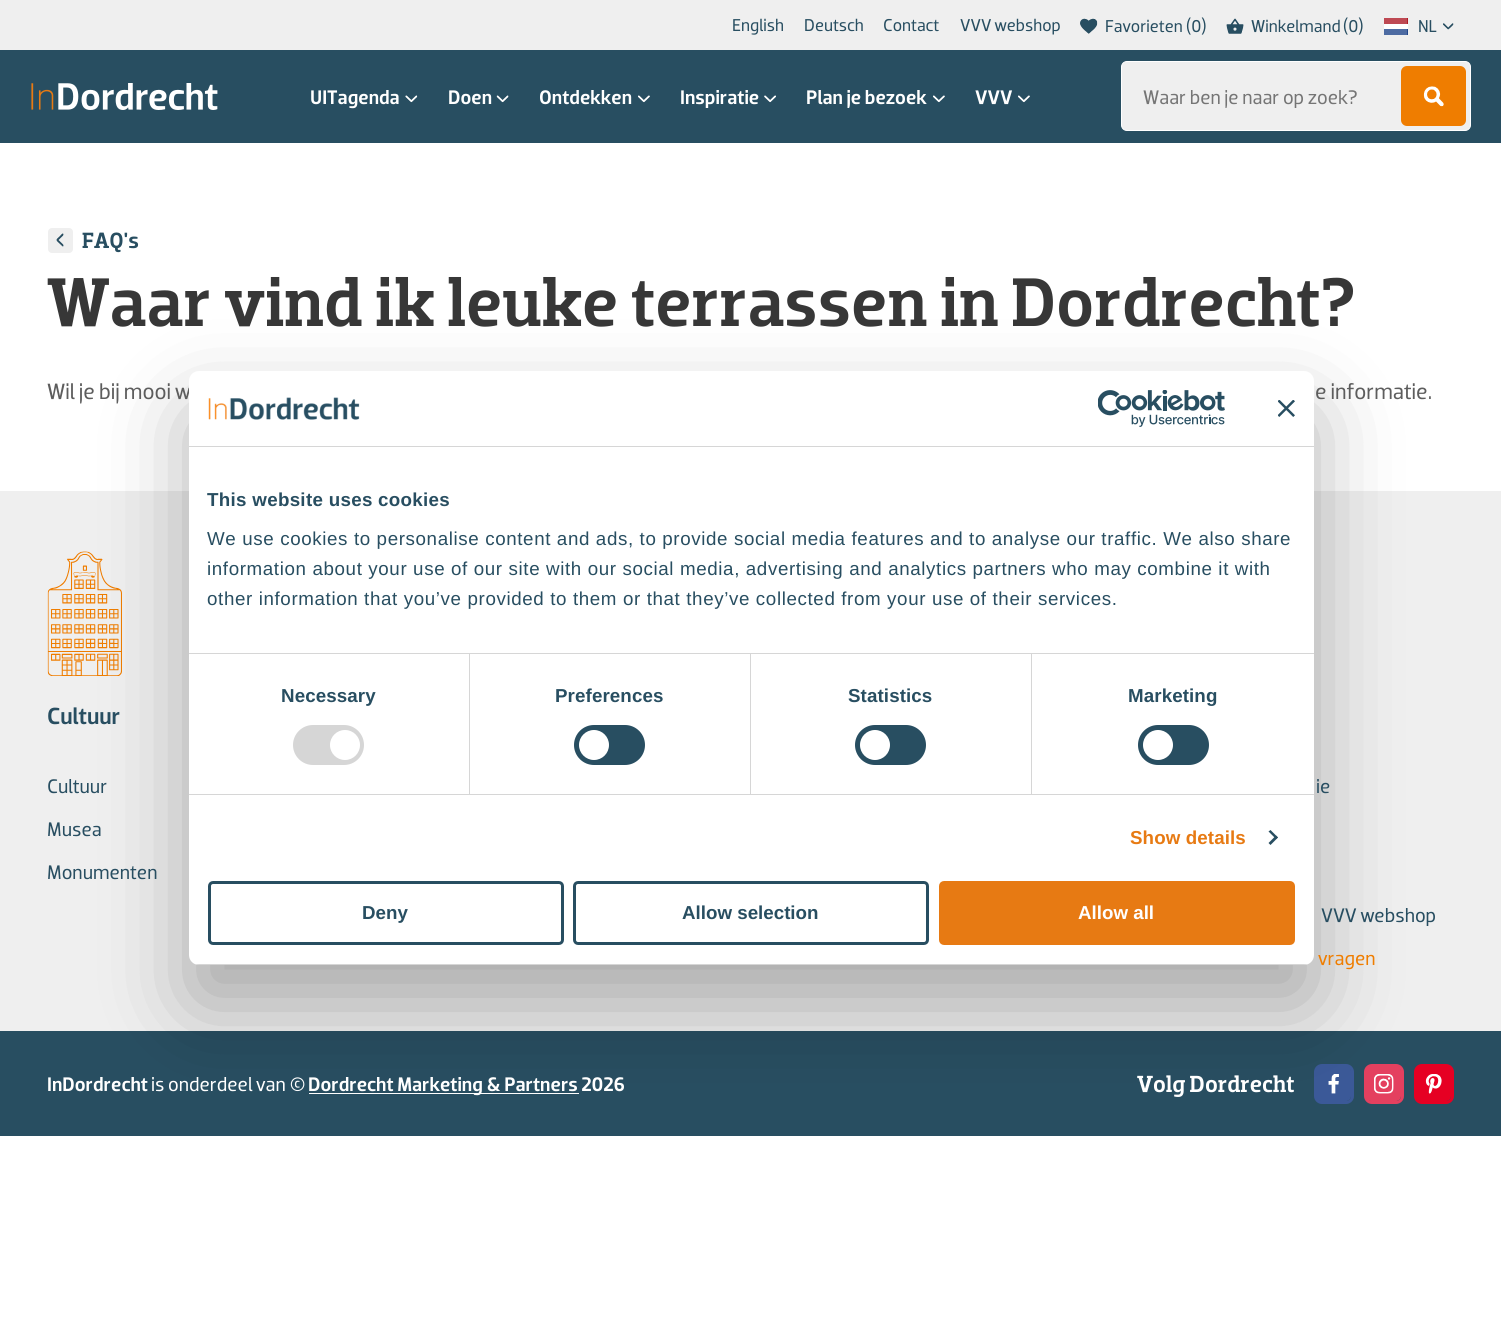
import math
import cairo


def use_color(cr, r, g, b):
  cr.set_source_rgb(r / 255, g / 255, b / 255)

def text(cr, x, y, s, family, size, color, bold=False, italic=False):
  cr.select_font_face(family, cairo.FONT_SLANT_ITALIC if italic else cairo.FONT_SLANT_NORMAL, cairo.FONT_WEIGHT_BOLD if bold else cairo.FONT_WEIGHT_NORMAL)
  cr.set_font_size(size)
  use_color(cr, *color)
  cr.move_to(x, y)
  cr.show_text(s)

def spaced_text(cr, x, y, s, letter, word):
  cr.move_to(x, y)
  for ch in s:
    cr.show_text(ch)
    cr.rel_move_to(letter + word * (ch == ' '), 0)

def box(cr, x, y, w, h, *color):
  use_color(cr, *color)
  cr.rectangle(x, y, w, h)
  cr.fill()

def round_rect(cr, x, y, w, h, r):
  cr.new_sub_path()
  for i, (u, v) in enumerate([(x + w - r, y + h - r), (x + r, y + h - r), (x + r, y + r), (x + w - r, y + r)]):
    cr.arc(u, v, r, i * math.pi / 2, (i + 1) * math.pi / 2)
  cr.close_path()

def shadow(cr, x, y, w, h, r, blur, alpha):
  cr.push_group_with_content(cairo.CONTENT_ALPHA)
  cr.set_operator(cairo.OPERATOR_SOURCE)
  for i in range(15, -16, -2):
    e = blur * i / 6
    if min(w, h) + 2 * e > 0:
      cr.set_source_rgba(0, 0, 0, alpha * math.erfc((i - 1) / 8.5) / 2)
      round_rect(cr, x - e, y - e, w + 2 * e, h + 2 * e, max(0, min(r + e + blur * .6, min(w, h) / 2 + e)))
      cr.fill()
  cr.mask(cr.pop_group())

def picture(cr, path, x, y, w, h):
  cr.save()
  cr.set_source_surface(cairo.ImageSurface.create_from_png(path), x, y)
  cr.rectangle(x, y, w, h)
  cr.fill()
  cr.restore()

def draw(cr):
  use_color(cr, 255, 255, 255)
  cr.paint()
  box(cr, 0, 50, 1501, 93, 40, 78, 97)
  box(cr, 0, 0, 1501, 50, 239, 239, 239)
  picture(cr, "img_01.png", 1080, 18, 18, 16)
  picture(cr, "img_02.png", 1226, 18, 18, 16)
  box(cr, 1407, 18, 1, 6, 174, 28, 40)
  box(cr, 1384, 18, 23, 6, 190, 73, 83)
  box(cr, 1384, 24, 24, 5, 255, 255, 255)
  box(cr, 1407, 29, 1, 6, 33, 70, 139)
  box(cr, 1384, 29, 23, 6, 77, 107, 162)
  picture(cr, "img_03.png", 1443, 23, 11, 7)
  picture(cr, "img_04.png", 31, 83, 187, 27)
  picture(cr, "img_05.png", 405, 95, 13, 8)
  picture(cr, "img_06.png", 496, 95, 13, 8)
  picture(cr, "img_07.png", 638, 95, 12, 8)
  picture(cr, "img_08.png", 764, 95, 12, 8)
  picture(cr, "img_07.png", 933, 95, 12, 8)
  picture(cr, "img_07.png", 1018, 95, 12, 8)
  use_color(cr, 239, 239, 239)
  round_rect(cr, 1121.5, 61.5, 349, 69, 5.5)
  cr.fill_preserve()
  use_color(cr, 255, 255, 255)
  cr.set_line_width(1)
  cr.stroke()
  use_color(cr, 239, 125, 0)
  round_rect(cr, 1401, 66, 65, 60, 6)
  cr.fill()
  picture(cr, "img_09.png", 1423, 86, 21, 21)
  use_color(cr, 239, 239, 239)
  round_rect(cr, 48, 228, 25, 25, 4)
  cr.fill()
  picture(cr, "img_10.png", 56, 233, 8, 14)
  box(cr, 0, 491, 1501, 540, 239, 239, 239)
  picture(cr, "img_11.png", 47, 551, 75, 125)
  box(cr, 0, 1031, 1501, 105, 40, 78, 97)
  box(cr, 309, 1093, 270, 1, 255, 255, 255)
  round_rect(cr, 1315.5, 1065.5, 37, 37, 6.5)
  use_color(cr, 59, 89, 152)
  cr.set_line_width(3)
  cr.stroke()
  round_rect(cr, 1316, 1066, 35, 35, 5)
  cr.fill()
  picture(cr, "img_12.png", 1328, 1074, 11, 20)
  round_rect(cr, 1365.5, 1065.5, 37, 37, 6.5)
  use_color(cr, 228, 64, 95)
  cr.stroke()
  round_rect(cr, 1366, 1066, 35, 35, 5)
  cr.fill()
  picture(cr, "img_13.png", 1374, 1074, 20, 20)
  round_rect(cr, 1415.5, 1065.5, 37, 37, 6.5)
  use_color(cr, 230, 0, 35)
  cr.stroke()
  round_rect(cr, 1416, 1066, 35, 35, 5)
  cr.fill()
  picture(cr, "img_14.png", 1425, 1074, 17, 20)
  use_color(cr, 0, 0, 0)
  shadow(cr, 189, 411, 1125, 594, 10, 42.5, 0.3)
  text(cr, 732, 31, "English", "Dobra", 17.5, (40, 78, 97))
  text(cr, 804, 31, "Deutsch", "Dobra", 17.5, (40, 78, 97))
  text(cr, 883, 31, "Contact", "Dobra", 17.5, (40, 78, 97))
  text(cr, 960, 31, "VVV webshop", "Dobra", 17.5, (40, 78, 97))
  text(cr, 1105, 32, "Favorieten", "Dobra", 17.5, (40, 78, 97))
  text(cr, 1186, 32, "(0)", "Dobra", 17.5, (40, 78, 97))
  text(cr, 1251, 32, "Winkelmand", "Dobra", 17.5, (40, 78, 97))
  text(cr, 1343, 32, "(0)", "Dobra", 17.5, (40, 78, 97))
  text(cr, 1418, 32, "NL", "Dobra", 17.5, (40, 78, 97))
  text(cr, 310, 104, "UITagenda", "Dobra Medium", 20, (255, 255, 255))
  text(cr, 448, 104, "Doen", "Dobra Medium", 20, (255, 255, 255))
  text(cr, 539, 104, "Ontdekken", "Dobra Medium", 20, (255, 255, 255))
  text(cr, 680, 104, "Inspiratie", "Dobra Medium", 20, (255, 255, 255))
  text(cr, 806, 104, "Plan je bezoek", "Dobra Medium", 20, (255, 255, 255))
  text(cr, 975, 104, "VVV", "Dobra Medium", 20, (255, 255, 255))
  text(cr, 1143, 104, "Waar ben je naar op zoek?", "Dobra", 20, (117, 117, 117))
  text(cr, 82, 248, "FAQ's", "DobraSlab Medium", 22.5, (40, 78, 97))
  text(cr, 47, 326, "Waar vind ik leuke terrassen in Dordrecht?", "DobraSlab Medium", 70, (55, 55, 55))
  text(cr, 47, 399, "Wil je bij mooi w", "Dobra", 22.5, (93, 93, 93))
  text(cr, 1315, 399, "e informatie.", "Dobra", 22.5, (93, 93, 93))
  text(cr, 47, 724, "Cultuur", "Dobra Medium", 23.75, (40, 78, 97))
  text(cr, 47, 793, "Cultuur", "Dobra", 20, (40, 78, 97))
  text(cr, 47, 836, "Musea", "Dobra", 20, (40, 78, 97))
  text(cr, 47, 879, "Monumenten", "Dobra", 20, (40, 78, 97))
  text(cr, 1316, 793, "ie", "Dobra", 20, (40, 78, 97))
  text(cr, 1321, 922, "VVV webshop", "Dobra", 20, (40, 78, 97))
  text(cr, 1318, 965, "vragen", "Dobra", 20, (239, 125, 0))
  text(cr, 47, 1091, "InDordrecht", "Dobra Medium", 20, (255, 255, 255))
  text(cr, 151, 1091, "is onderdeel van", "Dobra", 20, (255, 255, 255))
  text(cr, 290, 1091, "©", "Dobra Medium", 20, (255, 255, 255))
  text(cr, 308, 1091, "Dordrecht Marketing & Partners 2026", "Dobra Medium", 20, (255, 255, 255))
  text(cr, 1137, 1092, "Volg Dordrecht", "DobraSlab Medium", 23.75, (255, 255, 255))
  round_rect(cr, 189, 371, 1125, 594, 10)
  cr.fill()
  box(cr, 189, 446, 1125, 1, 214, 214, 214)
  picture(cr, "img_15.png", 208, 397, 152, 23)
  picture(cr, "img_16.png", 1098, 390, 127, 37)
  picture(cr, "img_17.png", 1278, 400, 17, 17)
  box(cr, 189, 653, 1125, 1, 214, 214, 214)
  cr.select_font_face("Liberation Sans", cairo.FONT_SLANT_NORMAL, cairo.FONT_WEIGHT_BOLD)
  cr.set_font_size(18.75)
  use_color(cr, 40, 78, 97)
  spaced_text(cr, 207, 506, "This website uses cookies", 0.3, 0)
  cr.select_font_face("Liberation Sans")
  spaced_text(cr, 207, 545, "We use cookies to personalise content and ads, to provide social media features and to analyse our traffic. We also share", 0.62, 0)
  spaced_text(cr, 207, 575, "information about your use of our site with our social media, advertising and analytics partners who may combine it with", 0.62, 0)
  spaced_text(cr, 207, 605, "other information that you’ve provided to them or that they’ve collected from your use of their services.", 0.62, 0)
  box(cr, 189, 794, 1125, 1, 214, 214, 214)
  box(cr, 469, 654, 1, 140, 214, 214, 214)
  cr.select_font_face("Liberation Sans", cairo.FONT_SLANT_NORMAL, cairo.FONT_WEIGHT_BOLD)
  use_color(cr, 40, 78, 97)
  spaced_text(cr, 281, 702, "Necessary", 0.1, 0)
  use_color(cr, 214, 214, 214)
  round_rect(cr, 293, 725, 71, 40, 20)
  cr.fill()
  use_color(cr, 255, 255, 255)
  cr.arc(345, 745, 15, 0, 2 * math.pi)
  cr.fill()
  box(cr, 750, 654, 1, 140, 214, 214, 214)
  use_color(cr, 40, 78, 97)
  spaced_text(cr, 555, 702, "Preferences", 0.1, 0)
  round_rect(cr, 574, 725, 71, 40, 20)
  cr.fill()
  use_color(cr, 255, 255, 255)
  cr.arc(594, 745, 15, 0, 2 * math.pi)
  cr.fill()
  box(cr, 1031, 654, 1, 140, 214, 214, 214)
  use_color(cr, 40, 78, 97)
  spaced_text(cr, 848, 702, "Statistics", 0.1, 0)
  round_rect(cr, 855, 725, 71, 40, 20)
  cr.fill()
  use_color(cr, 255, 255, 255)
  cr.arc(875, 745, 15, 0, 2 * math.pi)
  cr.fill()
  use_color(cr, 40, 78, 97)
  spaced_text(cr, 1128, 702, "Marketing", 0.1, 0)
  round_rect(cr, 1138, 725, 71, 40, 20)
  cr.fill()
  use_color(cr, 255, 255, 255)
  cr.arc(1158, 745, 15, 0, 2 * math.pi)
  cr.fill()
  use_color(cr, 231, 122, 19)
  spaced_text(cr, 1130, 844, "Show details", 0.1, 0)
  use_color(cr, 40, 78, 97)
  cr.new_path()
  cr.move_to(1270.5, 830)
  cr.line_to(1278, 837.5)
  cr.line_to(1276, 839)
  cr.line_to(1268.5, 831.5)
  cr.close_path()
  cr.fill()
  cr.new_path()
  cr.move_to(1276, 835.5)
  cr.line_to(1278, 837.5)
  cr.line_to(1270.5, 845)
  cr.line_to(1268.5, 843)
  cr.close_path()
  cr.fill()
  cr.save()
  round_rect(cr, 189, 371, 1125, 594, 10)
  cr.clip()
  box(cr, 189, 964, 1125, 1, 214, 214, 214)
  cr.restore()
  round_rect(cr, 209.5, 882.5, 353, 61, 3.5)
  cr.stroke()
  text(cr, 362, 919, "Deny", "Liberation Sans", 18.75, (40, 78, 97), bold=True)
  round_rect(cr, 574.5, 882.5, 353, 61, 3.5)
  cr.stroke()
  text(cr, 682, 919, "Allow selection", "Liberation Sans", 18.75, (40, 78, 97), bold=True)
  use_color(cr, 231, 122, 19)
  round_rect(cr, 940.5, 882.5, 353, 61, 3.5)
  cr.fill_preserve()
  cr.stroke()
  text(cr, 1078, 919, "Allow all", "Liberation Sans", 18.75, (255, 255, 255), bold=True)


surface = cairo.ImageSurface(cairo.FORMAT_RGB24, 1501, 1334)
cr = cairo.Context(surface)
options = cairo.FontOptions()
options.set_hint_metrics(cairo.HINT_METRICS_OFF)
options.set_hint_style(cairo.HINT_STYLE_NONE)
cr.set_font_options(options)
cr.set_miter_limit(4)
draw(cr)
surface.write_to_png("out.png")
